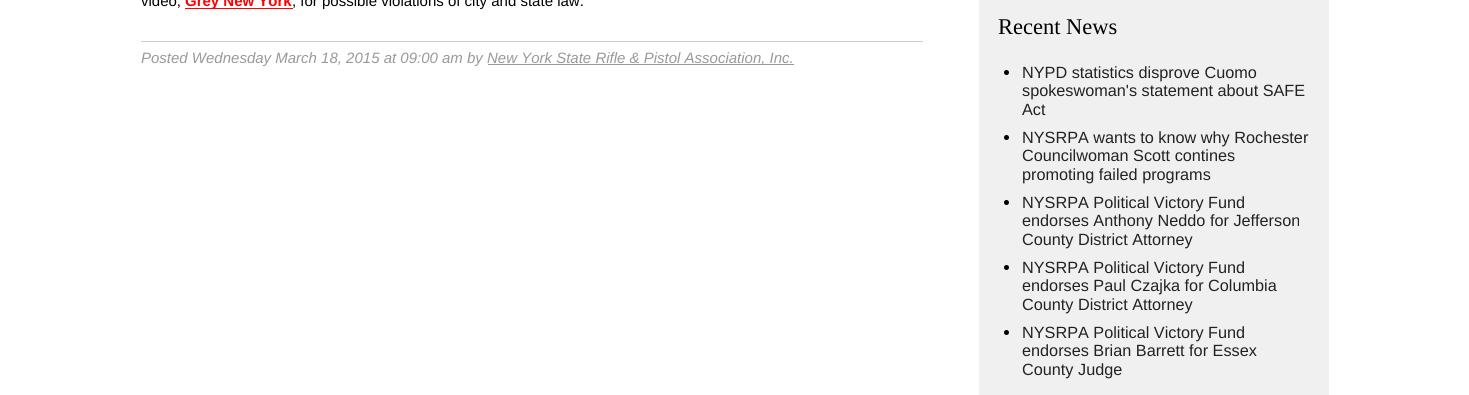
import math
import cairo


def use_color(cr, r, g, b):
  cr.set_source_rgb(r / 255, g / 255, b / 255)

def text(cr, x, y, s, family, size, color, bold=False, italic=False):
  cr.select_font_face(family, cairo.FONT_SLANT_ITALIC if italic else cairo.FONT_SLANT_NORMAL, cairo.FONT_WEIGHT_BOLD if bold else cairo.FONT_WEIGHT_NORMAL)
  cr.set_font_size(size)
  use_color(cr, *color)
  cr.move_to(x, y)
  cr.show_text(s)

def box(cr, x, y, w, h, *color):
  use_color(cr, *color)
  cr.rectangle(x, y, w, h)
  cr.fill()

def draw(cr):
  use_color(cr, 255, 255, 255)
  cr.paint()
  box(cr, 185, 8, 108, 1, 255, 0, 0)
  box(cr, 141, 41, 782, 1, 204, 204, 204)
  box(cr, 488, 64, 306, 1, 153, 153, 153)
  box(cr, 979, 0, 350, 395, 240, 240, 240)
  use_color(cr, 0, 0, 0)
  cr.arc(1006.5, 72.5, 2.5, 0, 2 * math.pi)
  cr.fill()
  cr.arc(1006.5, 137.5, 2.5, 0, 2 * math.pi)
  cr.fill()
  cr.arc(1006.5, 202.5, 2.5, 0, 2 * math.pi)
  cr.fill()
  cr.arc(1006.5, 267.5, 2.5, 0, 2 * math.pi)
  cr.fill()
  cr.arc(1006.5, 332.5, 2.5, 0, 2 * math.pi)
  cr.fill()
  text(cr, 141, 6, "video,", "Liberation Sans", 15, (0, 0, 0))
  text(cr, 185, 6, "Grey New York", "Liberation Sans", 15, (255, 0, 0), bold=True)
  text(cr, 292, 6, ", for possible violations of city and state law.", "Liberation Sans", 15, (0, 0, 0))
  text(cr, 141, 63, "Posted Wednesday March 18, 2015 at 09:00 am by", "Liberation Sans", 15, (153, 153, 153), italic=True)
  text(cr, 487, 63, "New York State Rifle & Pistol Association, Inc.", "Liberation Sans", 15, (153, 153, 153), italic=True)
  text(cr, 998, 34, "Recent News", "Liberation Serif", 22.5, (0, 0, 0))
  text(cr, 1022, 78, "NYPD statistics disprove Cuomo", "Liberation Sans", 16.25, (34, 34, 34))
  text(cr, 1022, 96, "spokeswoman's statement about SAFE", "Liberation Sans", 16.25, (34, 34, 34))
  text(cr, 1022, 115, "Act", "Liberation Sans", 16.25, (34, 34, 34))
  text(cr, 1022, 143, "NYSRPA wants to know why Rochester", "Liberation Sans", 16.25, (34, 34, 34))
  text(cr, 1022, 161, "Councilwoman Scott contines", "Liberation Sans", 16.25, (34, 34, 34))
  text(cr, 1022, 180, "promoting failed programs", "Liberation Sans", 16.25, (34, 34, 34))
  text(cr, 1022, 208, "NYSRPA Political Victory Fund", "Liberation Sans", 16.25, (34, 34, 34))
  text(cr, 1022, 226, "endorses Anthony Neddo for Jefferson", "Liberation Sans", 16.25, (34, 34, 34))
  text(cr, 1022, 245, "County District Attorney", "Liberation Sans", 16.25, (34, 34, 34))
  text(cr, 1022, 273, "NYSRPA Political Victory Fund", "Liberation Sans", 16.25, (34, 34, 34))
  text(cr, 1022, 291, "endorses Paul Czajka for Columbia", "Liberation Sans", 16.25, (34, 34, 34))
  text(cr, 1022, 310, "County District Attorney", "Liberation Sans", 16.25, (34, 34, 34))
  text(cr, 1022, 338, "NYSRPA Political Victory Fund", "Liberation Sans", 16.25, (34, 34, 34))
  text(cr, 1022, 356, "endorses Brian Barrett for Essex", "Liberation Sans", 16.25, (34, 34, 34))
  text(cr, 1022, 375, "County Judge", "Liberation Sans", 16.25, (34, 34, 34))


surface = cairo.ImageSurface(cairo.FORMAT_RGB24, 1469, 395)
cr = cairo.Context(surface)
options = cairo.FontOptions()
options.set_hint_metrics(cairo.HINT_METRICS_OFF)
options.set_hint_style(cairo.HINT_STYLE_NONE)
cr.set_font_options(options)
cr.set_miter_limit(4)
draw(cr)
surface.write_to_png("out.png")
